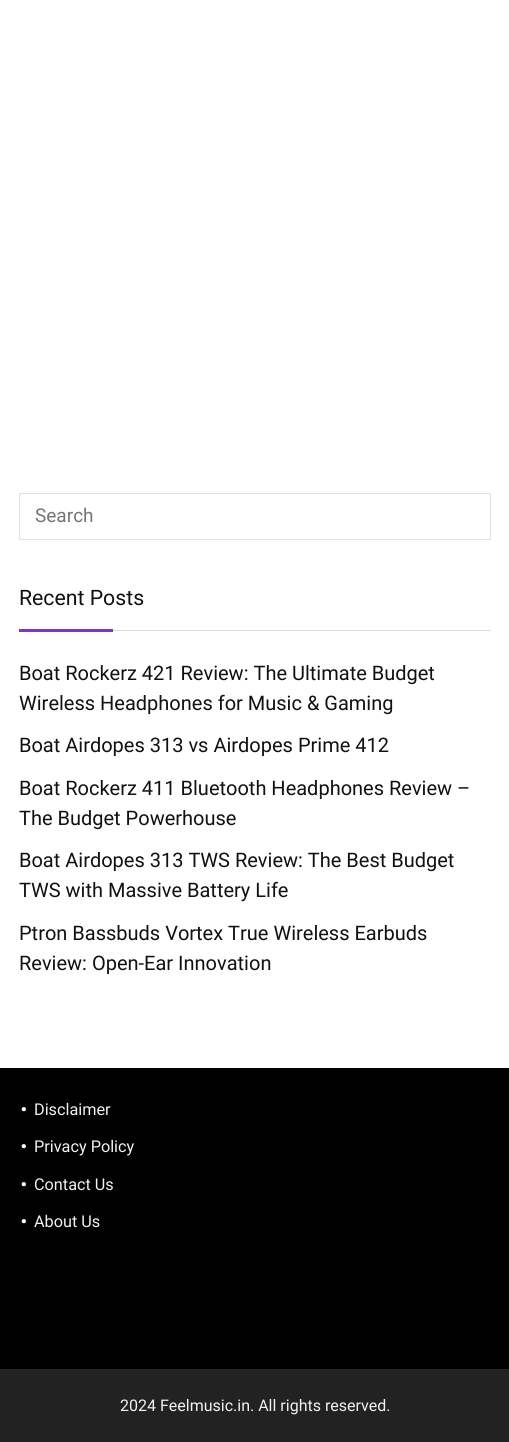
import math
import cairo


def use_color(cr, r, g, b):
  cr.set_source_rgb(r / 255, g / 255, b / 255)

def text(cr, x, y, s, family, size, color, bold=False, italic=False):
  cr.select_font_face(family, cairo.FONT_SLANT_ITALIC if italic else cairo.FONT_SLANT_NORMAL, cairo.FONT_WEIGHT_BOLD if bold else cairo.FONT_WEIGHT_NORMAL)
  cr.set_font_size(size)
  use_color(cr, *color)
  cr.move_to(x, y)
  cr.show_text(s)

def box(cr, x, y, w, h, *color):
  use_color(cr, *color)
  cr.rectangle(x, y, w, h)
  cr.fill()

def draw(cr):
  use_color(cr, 255, 255, 255)
  cr.paint()
  cr.rectangle(19.5, 493.5, 471, 46)
  use_color(cr, 225, 225, 225)
  cr.set_line_width(1)
  cr.stroke()
  box(cr, 113, 630, 378, 1, 221, 221, 221)
  box(cr, 19, 629, 94, 3, 128, 53, 190)
  box(cr, 0, 1068, 509, 301, 0, 0, 0)
  box(cr, 0, 1369, 509, 73, 34, 34, 34)
  text(cr, 35, 522, "Search", "Roboto", 19, (117, 117, 117))
  text(cr, 19, 605, "Recent Posts", "Roboto", 21.25, (17, 17, 17))
  text(cr, 19, 680, "Boat Rockerz 421 Review: The Ultimate Budget", "Roboto", 20, (17, 17, 17))
  text(cr, 19, 710, "Wireless Headphones for Music & Gaming", "Roboto", 20, (17, 17, 17))
  text(cr, 19, 752, "Boat Airdopes 313 vs Airdopes Prime 412", "Roboto", 20, (17, 17, 17))
  text(cr, 19, 795, "Boat Rockerz 411 Bluetooth Headphones Review –", "Roboto", 20, (17, 17, 17))
  text(cr, 19, 825, "The Budget Powerhouse", "Roboto", 20, (17, 17, 17))
  text(cr, 19, 867, "Boat Airdopes 313 TWS Review: The Best Budget", "Roboto", 20, (17, 17, 17))
  text(cr, 19, 897, "TWS with Massive Battery Life", "Roboto", 20, (17, 17, 17))
  text(cr, 19, 940, "Ptron Bassbuds Vortex True Wireless Earbuds", "Roboto", 20, (17, 17, 17))
  text(cr, 19, 970, "Review: Open-Ear Innovation", "Roboto", 20, (17, 17, 17))
  text(cr, 19, 1111, ".", "Roboto", 38, (255, 255, 255))
  text(cr, 34, 1115, "Disclaimer", "Roboto", 16.25, (241, 241, 241))
  text(cr, 19, 1148, ".", "Roboto", 38, (255, 255, 255))
  text(cr, 34, 1152, "Privacy Policy", "Roboto", 16.25, (241, 241, 241))
  text(cr, 19, 1186, ".", "Roboto", 38, (255, 255, 255))
  text(cr, 34, 1190, "Contact Us", "Roboto", 16.25, (241, 241, 241))
  text(cr, 19, 1223, ".", "Roboto", 38, (255, 255, 255))
  text(cr, 34, 1227, "About Us", "Roboto", 16.25, (241, 241, 241))
  text(cr, 120, 1411, "2024 Feelmusic.in. All rights reserved.", "Roboto", 16, (241, 241, 241))


surface = cairo.ImageSurface(cairo.FORMAT_RGB24, 509, 1442)
cr = cairo.Context(surface)
options = cairo.FontOptions()
options.set_hint_metrics(cairo.HINT_METRICS_OFF)
options.set_hint_style(cairo.HINT_STYLE_NONE)
cr.set_font_options(options)
cr.set_miter_limit(4)
draw(cr)
surface.write_to_png("out.png")
